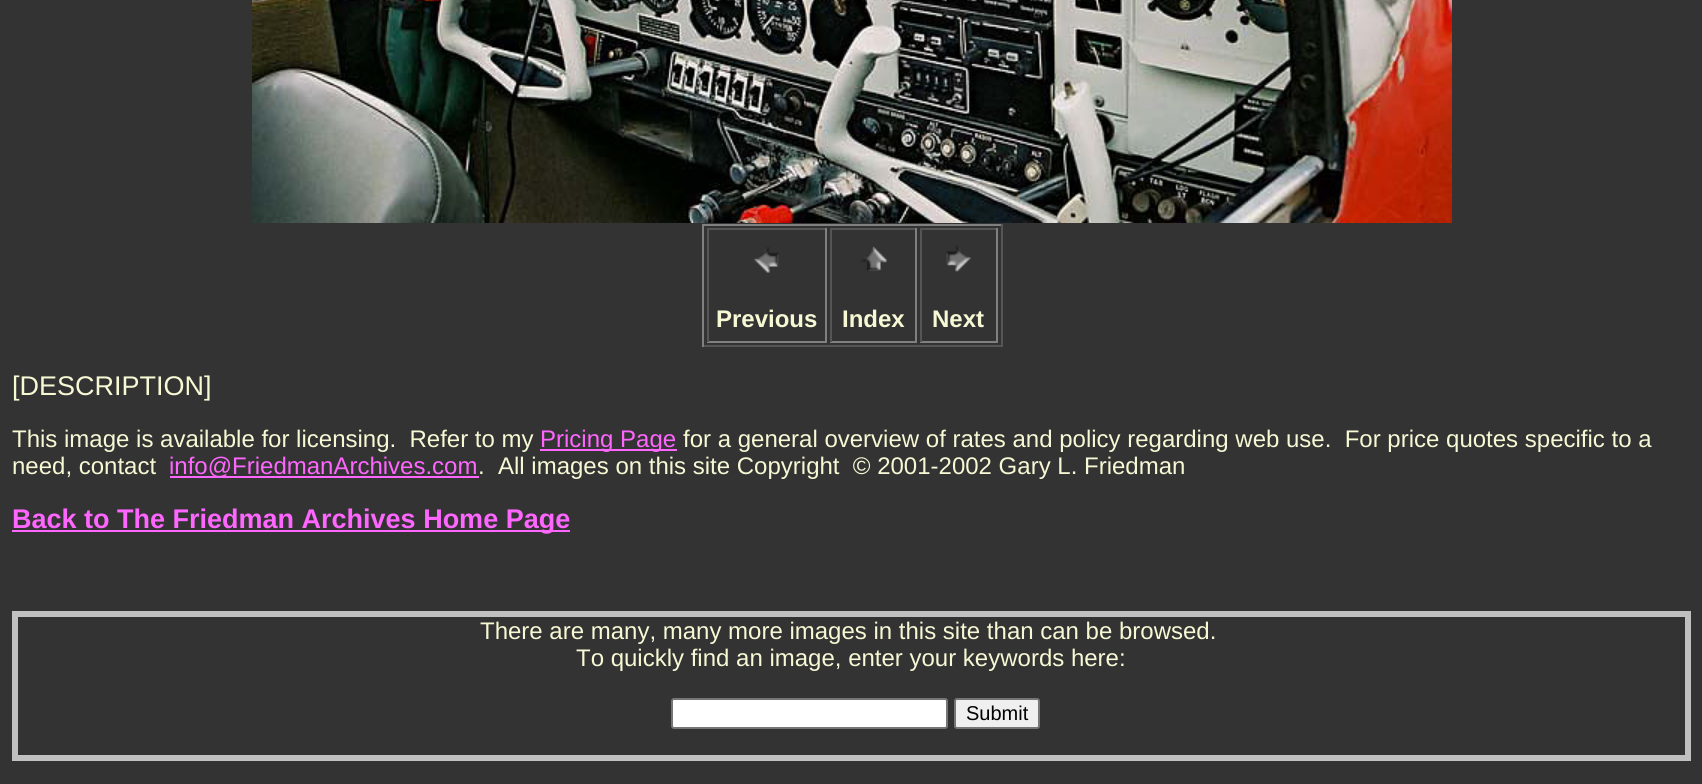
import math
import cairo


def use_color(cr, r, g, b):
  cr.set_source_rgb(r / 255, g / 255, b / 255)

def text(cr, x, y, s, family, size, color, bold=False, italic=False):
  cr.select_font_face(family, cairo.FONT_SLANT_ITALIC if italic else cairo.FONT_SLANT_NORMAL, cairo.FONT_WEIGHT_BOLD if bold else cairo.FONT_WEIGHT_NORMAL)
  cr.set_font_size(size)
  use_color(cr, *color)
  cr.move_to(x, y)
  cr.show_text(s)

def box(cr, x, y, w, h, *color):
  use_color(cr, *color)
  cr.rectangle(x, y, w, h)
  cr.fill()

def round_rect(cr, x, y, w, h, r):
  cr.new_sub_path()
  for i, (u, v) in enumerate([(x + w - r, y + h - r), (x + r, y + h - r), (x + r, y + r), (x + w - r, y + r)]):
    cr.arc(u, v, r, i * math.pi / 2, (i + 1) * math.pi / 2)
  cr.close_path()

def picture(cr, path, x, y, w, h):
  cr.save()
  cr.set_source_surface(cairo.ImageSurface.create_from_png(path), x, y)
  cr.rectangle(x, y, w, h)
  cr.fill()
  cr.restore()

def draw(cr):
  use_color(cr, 51, 51, 51)
  cr.paint()
  picture(cr, "img_01.png", 252, 0, 1200, 223)
  box(cr, 702, 224, 300, 2, 128, 128, 128)
  box(cr, 1001, 224, 2, 123, 85, 85, 85)
  box(cr, 702, 345, 300, 2, 85, 85, 85)
  box(cr, 702, 224, 2, 123, 128, 128, 128)
  box(cr, 707, 228, 120, 2, 85, 85, 85)
  box(cr, 825, 228, 2, 114, 128, 128, 128)
  box(cr, 707, 341, 120, 2, 128, 128, 128)
  box(cr, 707, 228, 2, 114, 85, 85, 85)
  picture(cr, "img_02.png", 754, 247, 25, 26)
  box(cr, 830, 228, 87, 2, 85, 85, 85)
  box(cr, 915, 228, 2, 114, 128, 128, 128)
  box(cr, 830, 341, 87, 2, 128, 128, 128)
  box(cr, 830, 228, 2, 114, 85, 85, 85)
  picture(cr, "img_03.png", 861, 246, 26, 25)
  box(cr, 920, 228, 78, 2, 85, 85, 85)
  box(cr, 996, 228, 2, 114, 128, 128, 128)
  box(cr, 920, 341, 78, 2, 128, 128, 128)
  box(cr, 920, 228, 2, 114, 85, 85, 85)
  picture(cr, "img_04.png", 946, 245, 25, 27)
  box(cr, 540, 449, 137, 2, 255, 102, 255)
  box(cr, 170, 476, 309, 2, 255, 102, 255)
  box(cr, 12, 530, 558, 2, 255, 102, 255)
  cr.rectangle(15, 614, 1673, 144)
  use_color(cr, 192, 192, 192)
  cr.set_line_width(6)
  cr.stroke()
  use_color(cr, 255, 255, 255)
  round_rect(cr, 672, 699, 275, 29, 2)
  cr.fill_preserve()
  use_color(cr, 118, 118, 118)
  cr.set_line_width(2)
  cr.stroke()
  use_color(cr, 239, 239, 239)
  round_rect(cr, 955, 699, 84, 29, 2)
  cr.fill_preserve()
  use_color(cr, 118, 118, 118)
  cr.stroke()
  text(cr, 716, 327, "Previous", "Liberation Sans", 24, (247, 248, 212), bold=True)
  text(cr, 842, 327, "Index", "Liberation Sans", 24, (247, 248, 212), bold=True)
  text(cr, 932, 327, "Next", "Liberation Sans", 24, (247, 248, 212), bold=True)
  text(cr, 12, 395, "[DESCRIPTION]", "Liberation Sans", 27, (247, 248, 212))
  text(cr, 12, 447, "This image is available for licensing.  Refer to my", "Liberation Sans", 24, (247, 248, 212))
  text(cr, 540, 447, "Pricing Page", "Liberation Sans", 24, (255, 102, 255))
  text(cr, 683, 447, "for a general overview of rates and policy regarding web use.  For price quotes specific to a", "Liberation Sans", 24, (247, 248, 212))
  text(cr, 12, 474, "need, contact", "Liberation Sans", 24, (247, 248, 212))
  text(cr, 169, 474, "info@FriedmanArchives.com", "Liberation Sans", 24, (255, 102, 255))
  text(cr, 478, 474, ".  All images on this site Copyright  © 2001-2002 Gary L. Friedman", "Liberation Sans", 24, (247, 248, 212))
  text(cr, 12, 528, "Back to The Friedman Archives Home Page", "Liberation Sans", 27, (255, 102, 255), bold=True)
  text(cr, 480, 639, "There are many, many more images in this site than can be browsed.", "Liberation Sans", 24, (247, 248, 212))
  text(cr, 576, 666, "To quickly find an image, enter your keywords here:", "Liberation Sans", 24, (247, 248, 212))
  text(cr, 966, 720, "Submit", "Liberation Sans", 20, (0, 0, 0))


surface = cairo.ImageSurface(cairo.FORMAT_RGB24, 1702, 784)
cr = cairo.Context(surface)
options = cairo.FontOptions()
options.set_hint_metrics(cairo.HINT_METRICS_OFF)
options.set_hint_style(cairo.HINT_STYLE_NONE)
cr.set_font_options(options)
cr.set_miter_limit(4)
draw(cr)
surface.write_to_png("out.png")
